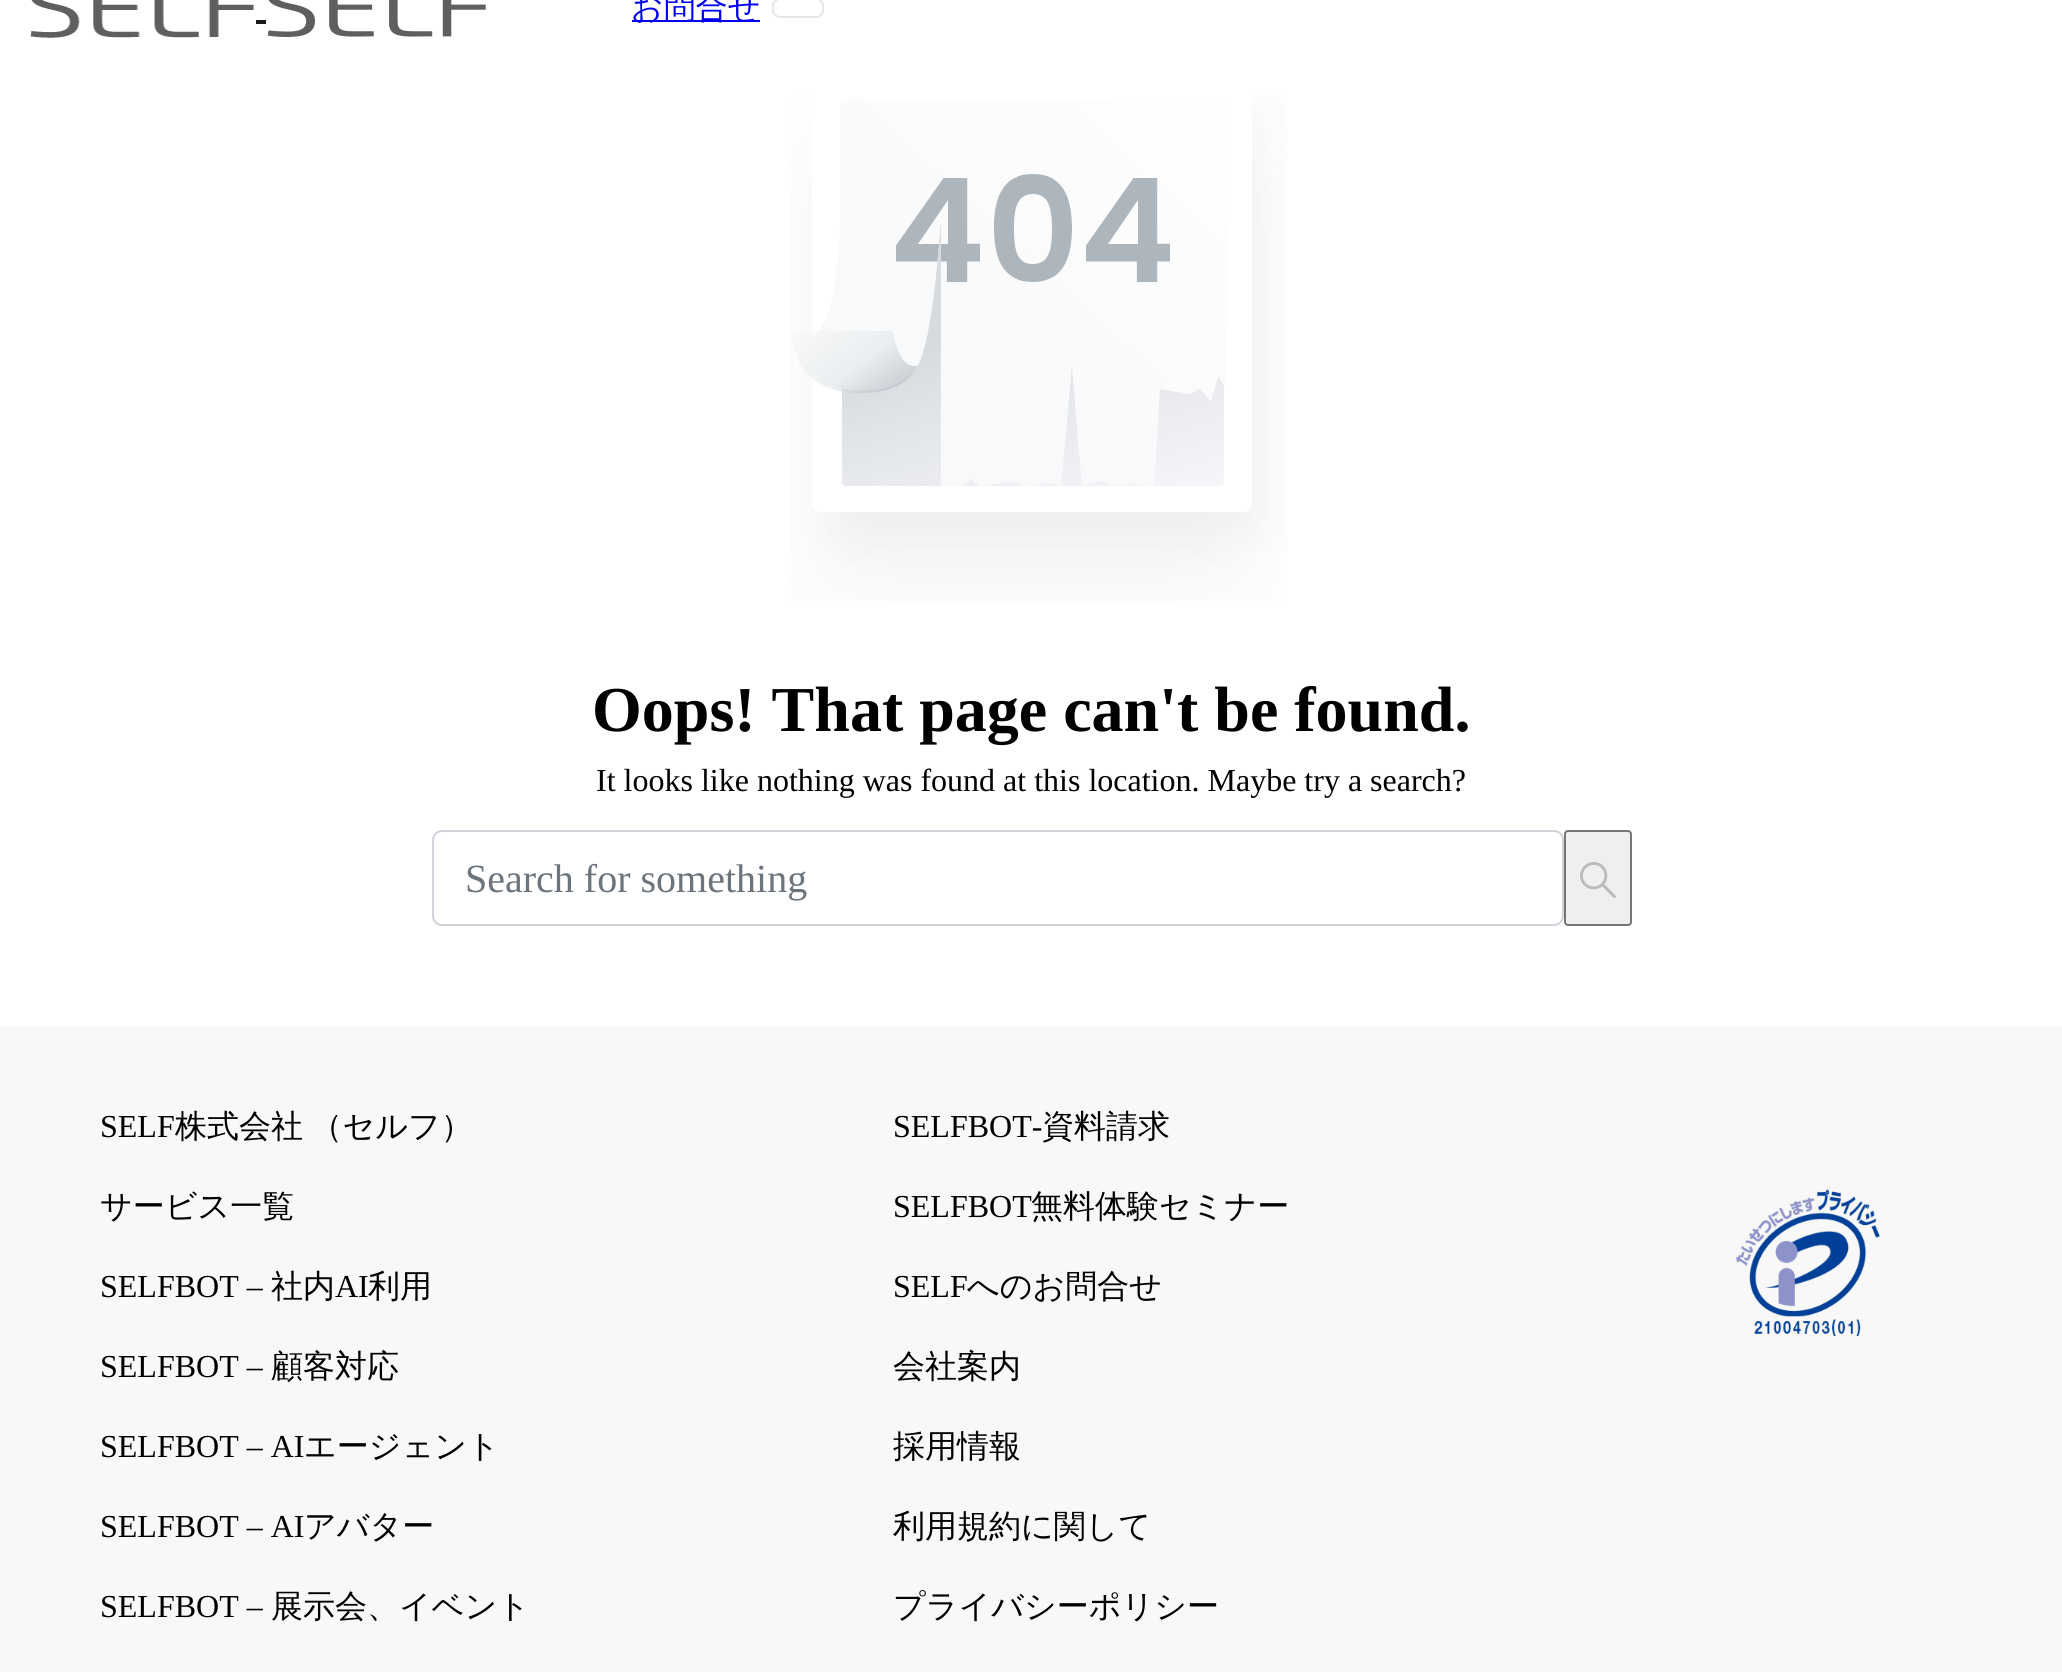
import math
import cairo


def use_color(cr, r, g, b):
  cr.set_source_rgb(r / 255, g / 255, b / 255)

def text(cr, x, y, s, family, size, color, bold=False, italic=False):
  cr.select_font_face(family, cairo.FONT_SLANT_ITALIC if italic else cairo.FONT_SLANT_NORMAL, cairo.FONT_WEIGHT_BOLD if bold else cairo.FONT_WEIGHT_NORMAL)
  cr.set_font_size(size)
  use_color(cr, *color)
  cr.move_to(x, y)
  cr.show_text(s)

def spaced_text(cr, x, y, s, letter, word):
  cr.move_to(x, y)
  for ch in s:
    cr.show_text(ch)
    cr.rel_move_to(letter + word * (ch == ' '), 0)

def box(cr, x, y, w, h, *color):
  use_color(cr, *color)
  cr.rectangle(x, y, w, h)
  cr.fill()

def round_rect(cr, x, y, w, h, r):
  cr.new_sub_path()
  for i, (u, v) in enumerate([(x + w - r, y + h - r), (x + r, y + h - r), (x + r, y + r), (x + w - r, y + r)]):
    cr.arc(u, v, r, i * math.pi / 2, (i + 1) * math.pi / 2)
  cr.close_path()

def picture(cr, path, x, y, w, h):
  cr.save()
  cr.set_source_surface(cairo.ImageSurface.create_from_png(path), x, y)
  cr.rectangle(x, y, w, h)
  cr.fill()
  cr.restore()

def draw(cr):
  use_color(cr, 255, 255, 255)
  cr.paint()
  picture(cr, "img_01.png", 30, 0, 224, 38)
  box(cr, 256, 20, 10, 4, 26, 26, 26)
  picture(cr, "img_02.png", 267, 0, 219, 37)
  box(cr, 632, 20, 128, 2, 0, 0, 238)
  round_rect(cr, 773, -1, 50, 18, 7)
  use_color(cr, 230, 230, 230)
  cr.stroke()
  picture(cr, "img_03.png", 790, 95, 497, 506)
  round_rect(cr, 433, 831, 1130, 94, 9)
  use_color(cr, 206, 212, 218)
  cr.stroke()
  use_color(cr, 239, 239, 239)
  round_rect(cr, 1565, 831, 66, 94, 3)
  cr.fill_preserve()
  use_color(cr, 118, 118, 118)
  cr.stroke()
  picture(cr, "img_04.png", 1580, 862, 36, 36)
  box(cr, 0, 1026, 2062, 646, 248, 248, 248)
  picture(cr, "img_05.png", 1735, 1189, 146, 147)
  text(cr, 631, 18, "お問合せ", "WenQuanYi Zen Hei Medium", 32, (0, 0, 238))
  text(cr, 592, 731, "Oops! That page can't be found.", "Liberation Serif", 64, (0, 0, 0), bold=True)
  text(cr, 596, 791, "It looks like nothing was found at this location. Maybe try a search?", "Liberation Serif", 32, (0, 0, 0))
  text(cr, 465, 892, "Search for something", "Liberation Serif", 40, (108, 117, 125))
  text(cr, 100, 1137, "SELF", "Liberation Serif", 32, (0, 0, 0))
  cr.select_font_face("WenQuanYi Zen Hei Medium")
  spaced_text(cr, 175, 1137, "株式会社 （セルフ）", 0, -2)
  text(cr, 100, 1217, "サービス一覧", "WenQuanYi Zen Hei Medium", 32, (0, 0, 0))
  text(cr, 100, 1297, "SELFBOT –", "Liberation Serif", 32, (0, 0, 0))
  text(cr, 271, 1297, "社内", "WenQuanYi Zen Hei Medium", 32, (0, 0, 0))
  text(cr, 335, 1297, "AI", "Liberation Serif", 32, (0, 0, 0))
  text(cr, 368, 1297, "利用", "WenQuanYi Zen Hei Medium", 32, (0, 0, 0))
  text(cr, 100, 1377, "SELFBOT –", "Liberation Serif", 32, (0, 0, 0))
  text(cr, 271, 1377, "顧客対応", "WenQuanYi Zen Hei Medium", 32, (0, 0, 0))
  text(cr, 100, 1457, "SELFBOT – AI", "Liberation Serif", 32, (0, 0, 0))
  text(cr, 304, 1457, "エージェント", "WenQuanYi Zen Hei Medium", 32, (0, 0, 0))
  text(cr, 100, 1537, "SELFBOT – AI", "Liberation Serif", 32, (0, 0, 0))
  text(cr, 304, 1537, "アバター", "WenQuanYi Zen Hei Medium", 32, (0, 0, 0))
  text(cr, 100, 1617, "SELFBOT –", "Liberation Serif", 32, (0, 0, 0))
  text(cr, 271, 1617, "展示会、イベント", "WenQuanYi Zen Hei Medium", 32, (0, 0, 0))
  text(cr, 893, 1137, "SELFBOT-", "Liberation Serif", 32, (0, 0, 0))
  text(cr, 1042, 1137, "資料請求", "WenQuanYi Zen Hei Medium", 32, (0, 0, 0))
  text(cr, 893, 1217, "SELFBOT", "Liberation Serif", 32, (0, 0, 0))
  text(cr, 1031, 1217, "無料体験セミナー", "WenQuanYi Zen Hei Medium", 32, (0, 0, 0))
  text(cr, 893, 1297, "SELF", "Liberation Serif", 32, (0, 0, 0))
  text(cr, 967, 1297, "へのお問合せ", "WenQuanYi Zen Hei Medium", 32, (0, 0, 0))
  text(cr, 893, 1377, "会社案内", "WenQuanYi Zen Hei Medium", 32, (0, 0, 0))
  text(cr, 893, 1457, "採用情報", "WenQuanYi Zen Hei Medium", 32, (0, 0, 0))
  text(cr, 893, 1537, "利用規約に関して", "WenQuanYi Zen Hei Medium", 32, (0, 0, 0))
  text(cr, 893, 1617, "プライバシーポリシー", "WenQuanYi Zen Hei Medium", 32, (0, 0, 0))


surface = cairo.ImageSurface(cairo.FORMAT_RGB24, 2062, 1672)
cr = cairo.Context(surface)
options = cairo.FontOptions()
options.set_hint_metrics(cairo.HINT_METRICS_OFF)
options.set_hint_style(cairo.HINT_STYLE_NONE)
cr.set_font_options(options)
cr.set_miter_limit(4)
draw(cr)
surface.write_to_png("out.png")
